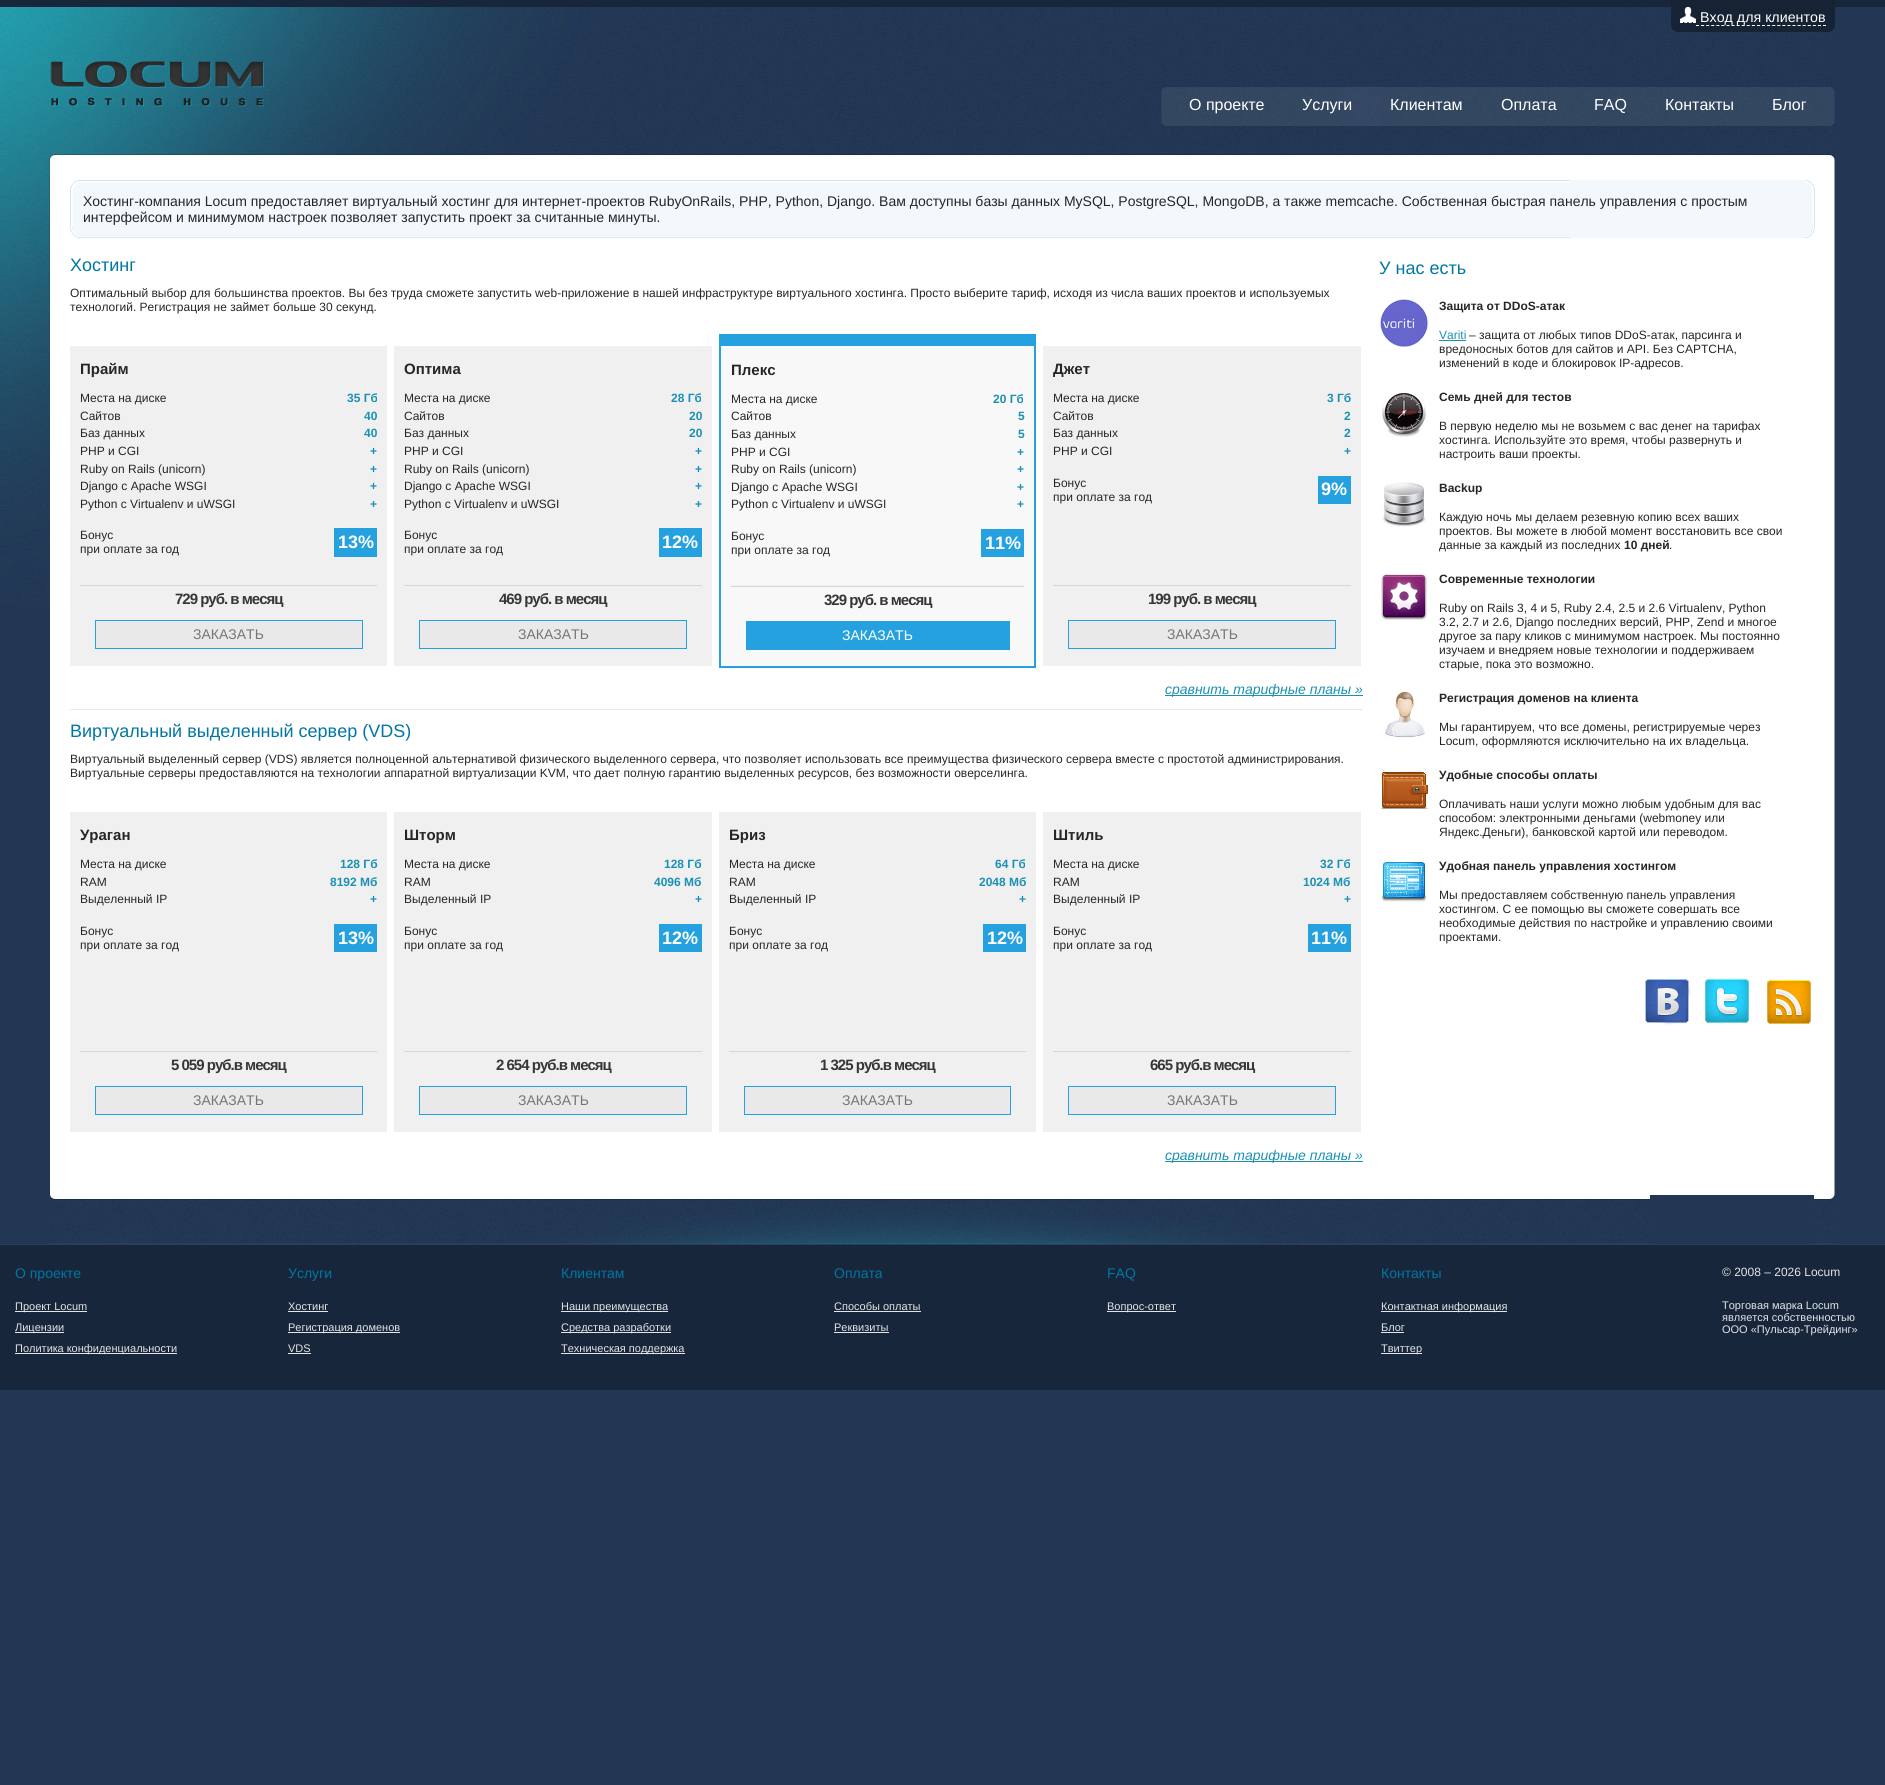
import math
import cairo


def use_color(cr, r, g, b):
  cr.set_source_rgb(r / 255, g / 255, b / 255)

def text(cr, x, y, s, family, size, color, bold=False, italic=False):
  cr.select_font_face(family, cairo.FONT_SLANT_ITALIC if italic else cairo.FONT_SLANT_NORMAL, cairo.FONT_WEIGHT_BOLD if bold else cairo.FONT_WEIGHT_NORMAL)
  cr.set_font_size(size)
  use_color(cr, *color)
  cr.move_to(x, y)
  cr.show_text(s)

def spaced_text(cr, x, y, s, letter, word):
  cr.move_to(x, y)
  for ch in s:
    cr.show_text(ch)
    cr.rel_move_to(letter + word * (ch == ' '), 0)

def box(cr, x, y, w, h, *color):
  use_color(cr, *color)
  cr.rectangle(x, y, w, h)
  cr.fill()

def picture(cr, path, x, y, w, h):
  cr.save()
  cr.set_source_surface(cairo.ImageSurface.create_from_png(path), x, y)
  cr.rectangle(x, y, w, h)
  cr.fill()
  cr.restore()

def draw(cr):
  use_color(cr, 34, 55, 84)
  cr.paint()
  picture(cr, "img_01.png", 0, 7, 50, 597)
  box(cr, 0, 0, 1885, 7, 24, 38, 59)
  picture(cr, "img_03.png", 50, 7, 1777, 153)
  picture(cr, "img_04.png", 1827, 25, 8, 135)
  use_color(cr, 22, 35, 52)
  cr.new_path()
  cr.move_to(1671, 0)
  cr.line_to(1835, 0)
  cr.line_to(1835, 25)
  cr.curve_to(1835, 29, 1832, 32, 1828, 32)
  cr.line_to(1678, 32)
  cr.curve_to(1674, 32, 1671, 29, 1671, 25)
  cr.close_path()
  cr.fill()
  picture(cr, "img_02.png", 1680, 7, 16, 15)
  cr.new_path()
  cr.move_to(1680, 22.5)
  cr.line_to(1696, 22.5)
  use_color(cr, 255, 255, 255)
  cr.set_line_width(1)
  cr.set_dash([3, 1.33])
  cr.stroke()
  cr.new_path()
  cr.move_to(1696, 25.5)
  cr.line_to(1826, 25.5)
  cr.set_dash([3, 2.08])
  cr.stroke()
  box(cr, 50, 160, 1784, 1035, 255, 255, 255)
  box(cr, 1834, 160, 1, 1035, 148, 156, 167)
  picture(cr, "img_05.png", 50, 61, 214, 46)
  picture(cr, "img_06.png", 1161, 87, 669, 39)
  picture(cr, "img_07.png", 1830, 87, 5, 39)
  box(cr, 1570, 180, 236, 58, 243, 248, 252)
  picture(cr, "img_08.png", 70, 180, 1500, 47)
  picture(cr, "img_09.png", 1806, 180, 9, 47)
  picture(cr, "img_10.png", 70, 227, 1500, 11)
  picture(cr, "img_11.png", 1805, 227, 10, 11)
  box(cr, 70, 346, 317, 320, 241, 240, 240)
  box(cr, 334, 528, 43, 29, 37, 161, 224)
  box(cr, 80, 585, 297, 1, 216, 214, 214)
  use_color(cr, 233, 233, 233)
  cr.rectangle(95.5, 620.5, 267, 28)
  cr.fill_preserve()
  use_color(cr, 37, 161, 224)
  cr.set_dash([])
  cr.stroke()
  box(cr, 394, 346, 318, 320, 241, 240, 240)
  box(cr, 659, 528, 43, 29, 37, 161, 224)
  box(cr, 404, 585, 298, 1, 216, 214, 214)
  use_color(cr, 233, 233, 233)
  cr.rectangle(419.5, 620.5, 267, 28)
  cr.fill_preserve()
  use_color(cr, 37, 161, 224)
  cr.stroke()
  cr.rectangle(720, 335, 315, 332)
  cr.set_line_width(2)
  cr.stroke()
  box(cr, 721, 336, 313, 10, 37, 161, 224)
  box(cr, 721, 346, 313, 320, 249, 248, 248)
  box(cr, 981, 529, 43, 28, 37, 161, 224)
  picture(cr, "img_12.png", 731, 585, 293, 2)
  box(cr, 746, 621, 264, 29, 37, 161, 224)
  box(cr, 1043, 346, 318, 320, 241, 240, 240)
  box(cr, 1318, 476, 33, 28, 37, 161, 224)
  box(cr, 1053, 585, 298, 1, 216, 214, 214)
  use_color(cr, 233, 233, 233)
  cr.rectangle(1068.5, 620.5, 267, 28)
  cr.fill_preserve()
  use_color(cr, 37, 161, 224)
  cr.set_line_width(1)
  cr.stroke()
  box(cr, 1165, 695, 198, 1, 26, 145, 180)
  picture(cr, "img_13.png", 70, 709, 1293, 1)
  box(cr, 70, 812, 317, 320, 241, 240, 240)
  box(cr, 334, 924, 43, 28, 37, 161, 224)
  box(cr, 80, 1051, 297, 1, 216, 214, 214)
  use_color(cr, 233, 233, 233)
  cr.rectangle(95.5, 1086.5, 267, 28)
  cr.fill_preserve()
  use_color(cr, 37, 161, 224)
  cr.stroke()
  box(cr, 394, 812, 318, 320, 241, 240, 240)
  box(cr, 659, 924, 43, 28, 37, 161, 224)
  box(cr, 404, 1051, 298, 1, 216, 214, 214)
  use_color(cr, 233, 233, 233)
  cr.rectangle(419.5, 1086.5, 267, 28)
  cr.fill_preserve()
  use_color(cr, 37, 161, 224)
  cr.stroke()
  box(cr, 719, 812, 317, 320, 241, 240, 240)
  box(cr, 983, 924, 43, 28, 37, 161, 224)
  box(cr, 729, 1051, 297, 1, 216, 214, 214)
  use_color(cr, 233, 233, 233)
  cr.rectangle(744.5, 1086.5, 266, 28)
  cr.fill_preserve()
  use_color(cr, 37, 161, 224)
  cr.stroke()
  box(cr, 1043, 812, 318, 320, 241, 240, 240)
  box(cr, 1308, 924, 43, 28, 37, 161, 224)
  box(cr, 1053, 1051, 298, 1, 216, 214, 214)
  use_color(cr, 233, 233, 233)
  cr.rectangle(1068.5, 1086.5, 267, 28)
  cr.fill_preserve()
  use_color(cr, 37, 161, 224)
  cr.stroke()
  box(cr, 1165, 1161, 198, 1, 26, 145, 180)
  picture(cr, "img_14.png", 1380, 299, 48, 48)
  box(cr, 1439, 340, 27, 1, 26, 145, 180)
  picture(cr, "img_15.png", 1382, 392, 44, 46)
  picture(cr, "img_16.png", 1380, 482, 47, 45)
  picture(cr, "img_17.png", 1379, 572, 48, 48)
  picture(cr, "img_18.png", 1383, 691, 42, 48)
  picture(cr, "img_19.png", 1379, 768, 49, 41)
  picture(cr, "img_20.png", 1379, 859, 48, 43)
  picture(cr, "img_21.png", 1645, 979, 46, 46)
  picture(cr, "img_22.png", 1705, 979, 44, 44)
  picture(cr, "img_23.png", 1767, 980, 44, 44)
  picture(cr, "img_24.png", 50, 1195, 1600, 49)
  picture(cr, "img_25.png", 1814, 1195, 21, 49)
  picture(cr, "img_26.png", 532, 1196, 821, 48)
  box(cr, 0, 1245, 1885, 145, 24, 38, 59)
  box(cr, 0, 1244, 1885, 1, 40, 63, 95)
  box(cr, 15, 1311, 72, 1, 226, 228, 230)
  box(cr, 15, 1332, 49, 1, 226, 228, 230)
  box(cr, 15, 1353, 162, 1, 226, 228, 230)
  box(cr, 288, 1311, 40, 1, 226, 228, 230)
  box(cr, 288, 1332, 112, 1, 226, 228, 230)
  box(cr, 288, 1353, 23, 1, 226, 228, 230)
  box(cr, 561, 1311, 107, 1, 226, 228, 230)
  box(cr, 561, 1332, 110, 1, 226, 228, 230)
  box(cr, 561, 1353, 124, 1, 226, 228, 230)
  box(cr, 834, 1311, 87, 1, 226, 228, 230)
  box(cr, 834, 1332, 55, 1, 226, 228, 230)
  box(cr, 1107, 1311, 69, 1, 226, 228, 230)
  box(cr, 1381, 1311, 126, 1, 226, 228, 230)
  box(cr, 1381, 1332, 23, 1, 226, 228, 230)
  box(cr, 1381, 1353, 41, 1, 226, 228, 230)
  text(cr, 1700, 22, "Вход для клиентов", "Liberation Sans", 14.25, (255, 255, 255))
  text(cr, 1189, 110, "О проекте", "Liberation Sans", 16, (255, 255, 255))
  text(cr, 1302, 110, "Услуги", "Liberation Sans", 16, (255, 255, 255))
  text(cr, 1390, 110, "Клиентам", "Liberation Sans", 16, (255, 255, 255))
  text(cr, 1501, 110, "Оплата", "Liberation Sans", 16, (255, 255, 255))
  text(cr, 1594, 110, "FAQ", "Liberation Sans", 16, (255, 255, 255))
  text(cr, 1665, 110, "Контакты", "Liberation Sans", 16, (255, 255, 255))
  text(cr, 1772, 110, "Блог", "Liberation Sans", 16, (255, 255, 255))
  text(cr, 83, 206, "Хостинг-компания Locum предоставляет виртуальный хостинг для интернет-проектов RubyOnRails, PHP, Python, Django. Вам доступны базы данных MySQL, PostgreSQL, MongoDB, а также memcache. Собственная быстрая панель управления с простым", "Liberation Sans", 14, (38, 38, 38))
  text(cr, 83, 222, "интерфейсом и минимумом настроек позволяет запустить проект за считанные минуты.", "Liberation Sans", 14, (38, 38, 38))
  text(cr, 70, 271, "Хостинг", "Liberation Sans", 18, (0, 118, 163))
  text(cr, 70, 297, "Оптимальный выбор для большинства проектов. Вы без труда сможете запустить web-приложение в нашей инфраструктуре виртуального хостинга. Просто выберите тариф, исходя из числа ваших проектов и используемых", "Liberation Sans", 12, (38, 38, 38))
  text(cr, 70, 311, "технологий. Регистрация не займет больше 30 секунд.", "Liberation Sans", 12, (38, 38, 38))
  text(cr, 80, 374, "Прайм", "Liberation Sans", 15, (38, 38, 38), bold=True)
  text(cr, 80, 402, "Места на диске", "Liberation Sans", 12, (38, 38, 38))
  text(cr, 347, 402, "35 Гб", "Liberation Sans", 12, (26, 145, 180), bold=True)
  text(cr, 80, 420, "Сайтов", "Liberation Sans", 12, (38, 38, 38))
  text(cr, 364, 420, "40", "Liberation Sans", 12, (26, 145, 180), bold=True)
  text(cr, 80, 437, "Баз данных", "Liberation Sans", 12, (38, 38, 38))
  text(cr, 364, 437, "40", "Liberation Sans", 12, (26, 145, 180), bold=True)
  text(cr, 80, 455, "PHP и CGI", "Liberation Sans", 12, (38, 38, 38))
  text(cr, 370, 455, "+", "Liberation Sans", 12, (26, 145, 180), bold=True)
  text(cr, 80, 473, "Ruby on Rails (unicorn)", "Liberation Sans", 12, (38, 38, 38))
  text(cr, 370, 473, "+", "Liberation Sans", 12, (26, 145, 180), bold=True)
  text(cr, 80, 490, "Django c Apache WSGI", "Liberation Sans", 12, (38, 38, 38))
  text(cr, 370, 490, "+", "Liberation Sans", 12, (26, 145, 180), bold=True)
  text(cr, 80, 508, "Python c Virtualenv и uWSGI", "Liberation Sans", 12, (38, 38, 38))
  text(cr, 370, 508, "+", "Liberation Sans", 12, (26, 145, 180), bold=True)
  text(cr, 80, 539, "Бонус", "Liberation Sans", 12, (38, 38, 38))
  text(cr, 80, 553, "при оплате за год", "Liberation Sans", 12, (38, 38, 38))
  text(cr, 338, 548, "13%", "Liberation Sans", 18, (255, 255, 255), bold=True)
  cr.set_font_size(15)
  use_color(cr, 54, 54, 54)
  spaced_text(cr, 175, 604, "729 руб. в месяц", -1, 0)
  text(cr, 193, 639, "ЗАКАЗАТЬ", "Liberation Sans", 14, (118, 118, 118))
  text(cr, 404, 374, "Оптима", "Liberation Sans", 15, (38, 38, 38), bold=True)
  text(cr, 404, 402, "Места на диске", "Liberation Sans", 12, (38, 38, 38))
  text(cr, 671, 402, "28 Гб", "Liberation Sans", 12, (26, 145, 180), bold=True)
  text(cr, 404, 420, "Сайтов", "Liberation Sans", 12, (38, 38, 38))
  text(cr, 689, 420, "20", "Liberation Sans", 12, (26, 145, 180), bold=True)
  text(cr, 404, 437, "Баз данных", "Liberation Sans", 12, (38, 38, 38))
  text(cr, 689, 437, "20", "Liberation Sans", 12, (26, 145, 180), bold=True)
  text(cr, 404, 455, "PHP и CGI", "Liberation Sans", 12, (38, 38, 38))
  text(cr, 695, 455, "+", "Liberation Sans", 12, (26, 145, 180), bold=True)
  text(cr, 404, 473, "Ruby on Rails (unicorn)", "Liberation Sans", 12, (38, 38, 38))
  text(cr, 695, 473, "+", "Liberation Sans", 12, (26, 145, 180), bold=True)
  text(cr, 404, 490, "Django c Apache WSGI", "Liberation Sans", 12, (38, 38, 38))
  text(cr, 695, 490, "+", "Liberation Sans", 12, (26, 145, 180), bold=True)
  text(cr, 404, 508, "Python c Virtualenv и uWSGI", "Liberation Sans", 12, (38, 38, 38))
  text(cr, 695, 508, "+", "Liberation Sans", 12, (26, 145, 180), bold=True)
  text(cr, 404, 539, "Бонус", "Liberation Sans", 12, (38, 38, 38))
  text(cr, 404, 553, "при оплате за год", "Liberation Sans", 12, (38, 38, 38))
  text(cr, 662, 548, "12%", "Liberation Sans", 18, (255, 255, 255), bold=True)
  cr.set_font_size(15)
  use_color(cr, 54, 54, 54)
  spaced_text(cr, 499, 604, "469 руб. в месяц", -1, 0)
  text(cr, 518, 639, "ЗАКАЗАТЬ", "Liberation Sans", 14, (118, 118, 118))
  text(cr, 731, 375, "Плекс", "Liberation Sans", 15, (38, 38, 38), bold=True)
  text(cr, 731, 403, "Места на диске", "Liberation Sans", 12, (38, 38, 38))
  text(cr, 993, 403, "20 Гб", "Liberation Sans", 12, (26, 145, 180), bold=True)
  text(cr, 731, 420, "Сайтов", "Liberation Sans", 12, (38, 38, 38))
  text(cr, 1018, 420, "5", "Liberation Sans", 12, (26, 145, 180), bold=True)
  text(cr, 731, 438, "Баз данных", "Liberation Sans", 12, (38, 38, 38))
  text(cr, 1018, 438, "5", "Liberation Sans", 12, (26, 145, 180), bold=True)
  text(cr, 731, 456, "PHP и CGI", "Liberation Sans", 12, (38, 38, 38))
  text(cr, 1017, 456, "+", "Liberation Sans", 12, (26, 145, 180), bold=True)
  text(cr, 731, 473, "Ruby on Rails (unicorn)", "Liberation Sans", 12, (38, 38, 38))
  text(cr, 1017, 473, "+", "Liberation Sans", 12, (26, 145, 180), bold=True)
  text(cr, 731, 491, "Django c Apache WSGI", "Liberation Sans", 12, (38, 38, 38))
  text(cr, 1017, 491, "+", "Liberation Sans", 12, (26, 145, 180), bold=True)
  text(cr, 731, 508, "Python c Virtualenv и uWSGI", "Liberation Sans", 12, (38, 38, 38))
  text(cr, 1017, 508, "+", "Liberation Sans", 12, (26, 145, 180), bold=True)
  text(cr, 731, 540, "Бонус", "Liberation Sans", 12, (38, 38, 38))
  text(cr, 731, 554, "при оплате за год", "Liberation Sans", 12, (38, 38, 38))
  text(cr, 985, 549, "11%", "Liberation Sans", 18, (255, 255, 255), bold=True)
  cr.set_font_size(15)
  use_color(cr, 54, 54, 54)
  spaced_text(cr, 824, 605, "329 руб. в месяц", -1, 0)
  text(cr, 842, 640, "ЗАКАЗАТЬ", "Liberation Sans", 14, (255, 255, 255))
  text(cr, 1053, 374, "Джет", "Liberation Sans", 15, (38, 38, 38), bold=True)
  text(cr, 1053, 402, "Места на диске", "Liberation Sans", 12, (38, 38, 38))
  text(cr, 1327, 402, "3 Гб", "Liberation Sans", 12, (26, 145, 180), bold=True)
  text(cr, 1053, 420, "Сайтов", "Liberation Sans", 12, (38, 38, 38))
  text(cr, 1344, 420, "2", "Liberation Sans", 12, (26, 145, 180), bold=True)
  text(cr, 1053, 437, "Баз данных", "Liberation Sans", 12, (38, 38, 38))
  text(cr, 1344, 437, "2", "Liberation Sans", 12, (26, 145, 180), bold=True)
  text(cr, 1053, 455, "PHP и CGI", "Liberation Sans", 12, (38, 38, 38))
  text(cr, 1344, 455, "+", "Liberation Sans", 12, (26, 145, 180), bold=True)
  text(cr, 1053, 487, "Бонус", "Liberation Sans", 12, (38, 38, 38))
  text(cr, 1053, 501, "при оплате за год", "Liberation Sans", 12, (38, 38, 38))
  text(cr, 1321, 495, "9%", "Liberation Sans", 18, (255, 255, 255), bold=True)
  cr.set_font_size(15)
  use_color(cr, 54, 54, 54)
  spaced_text(cr, 1148, 604, "199 руб. в месяц", -1, 0)
  text(cr, 1167, 639, "ЗАКАЗАТЬ", "Liberation Sans", 14, (118, 118, 118))
  text(cr, 1165, 694, "сравнить тарифные планы »", "Liberation Sans", 14, (26, 145, 180), italic=True)
  text(cr, 70, 737, "Виртуальный выделенный сервер (VDS)", "Liberation Sans", 18, (0, 118, 163))
  text(cr, 70, 763, "Виртуальный выделенный сервер (VDS) является полноценной альтернативой физического выделенного сервера, что позволяет использовать все преимущества физического сервера вместе с простотой администрирования.", "Liberation Sans", 12, (38, 38, 38))
  text(cr, 70, 777, "Виртуальные серверы предоставляются на технологии аппаратной виртуализации KVM, что дает полную гарантию выделенных ресурсов, без возможности оверселинга.", "Liberation Sans", 12, (38, 38, 38))
  text(cr, 80, 840, "Ураган", "Liberation Sans", 15, (38, 38, 38), bold=True)
  text(cr, 80, 868, "Места на диске", "Liberation Sans", 12, (38, 38, 38))
  text(cr, 340, 868, "128 Гб", "Liberation Sans", 12, (26, 145, 180), bold=True)
  text(cr, 80, 886, "RAM", "Liberation Sans", 12, (38, 38, 38))
  text(cr, 330, 886, "8192 Мб", "Liberation Sans", 12, (26, 145, 180), bold=True)
  text(cr, 80, 903, "Выделенный IP", "Liberation Sans", 12, (38, 38, 38))
  text(cr, 370, 903, "+", "Liberation Sans", 12, (26, 145, 180), bold=True)
  text(cr, 80, 935, "Бонус", "Liberation Sans", 12, (38, 38, 38))
  text(cr, 80, 949, "при оплате за год", "Liberation Sans", 12, (38, 38, 38))
  text(cr, 338, 944, "13%", "Liberation Sans", 18, (255, 255, 255), bold=True)
  cr.set_font_size(15)
  use_color(cr, 54, 54, 54)
  spaced_text(cr, 171, 1070, "5 059 руб.в месяц", -1, 0)
  text(cr, 193, 1105, "ЗАКАЗАТЬ", "Liberation Sans", 14, (118, 118, 118))
  text(cr, 404, 840, "Шторм", "Liberation Sans", 15, (38, 38, 38), bold=True)
  text(cr, 404, 868, "Места на диске", "Liberation Sans", 12, (38, 38, 38))
  text(cr, 664, 868, "128 Гб", "Liberation Sans", 12, (26, 145, 180), bold=True)
  text(cr, 404, 886, "RAM", "Liberation Sans", 12, (38, 38, 38))
  text(cr, 654, 886, "4096 Мб", "Liberation Sans", 12, (26, 145, 180), bold=True)
  text(cr, 404, 903, "Выделенный IP", "Liberation Sans", 12, (38, 38, 38))
  text(cr, 695, 903, "+", "Liberation Sans", 12, (26, 145, 180), bold=True)
  text(cr, 404, 935, "Бонус", "Liberation Sans", 12, (38, 38, 38))
  text(cr, 404, 949, "при оплате за год", "Liberation Sans", 12, (38, 38, 38))
  text(cr, 662, 944, "12%", "Liberation Sans", 18, (255, 255, 255), bold=True)
  cr.set_font_size(15)
  use_color(cr, 54, 54, 54)
  spaced_text(cr, 496, 1070, "2 654 руб.в месяц", -1, 0)
  text(cr, 518, 1105, "ЗАКАЗАТЬ", "Liberation Sans", 14, (118, 118, 118))
  text(cr, 729, 840, "Бриз", "Liberation Sans", 15, (38, 38, 38), bold=True)
  text(cr, 729, 868, "Места на диске", "Liberation Sans", 12, (38, 38, 38))
  text(cr, 995, 868, "64 Гб", "Liberation Sans", 12, (26, 145, 180), bold=True)
  text(cr, 729, 886, "RAM", "Liberation Sans", 12, (38, 38, 38))
  text(cr, 979, 886, "2048 Мб", "Liberation Sans", 12, (26, 145, 180), bold=True)
  text(cr, 729, 903, "Выделенный IP", "Liberation Sans", 12, (38, 38, 38))
  text(cr, 1019, 903, "+", "Liberation Sans", 12, (26, 145, 180), bold=True)
  text(cr, 729, 935, "Бонус", "Liberation Sans", 12, (38, 38, 38))
  text(cr, 729, 949, "при оплате за год", "Liberation Sans", 12, (38, 38, 38))
  text(cr, 987, 944, "12%", "Liberation Sans", 18, (255, 255, 255), bold=True)
  cr.set_font_size(15)
  use_color(cr, 54, 54, 54)
  spaced_text(cr, 820, 1070, "1 325 руб.в месяц", -1, 0)
  text(cr, 842, 1105, "ЗАКАЗАТЬ", "Liberation Sans", 14, (118, 118, 118))
  text(cr, 1053, 840, "Штиль", "Liberation Sans", 15, (38, 38, 38), bold=True)
  text(cr, 1053, 868, "Места на диске", "Liberation Sans", 12, (38, 38, 38))
  text(cr, 1320, 868, "32 Гб", "Liberation Sans", 12, (26, 145, 180), bold=True)
  text(cr, 1053, 886, "RAM", "Liberation Sans", 12, (38, 38, 38))
  text(cr, 1303, 886, "1024 Мб", "Liberation Sans", 12, (26, 145, 180), bold=True)
  text(cr, 1053, 903, "Выделенный IP", "Liberation Sans", 12, (38, 38, 38))
  text(cr, 1344, 903, "+", "Liberation Sans", 12, (26, 145, 180), bold=True)
  text(cr, 1053, 935, "Бонус", "Liberation Sans", 12, (38, 38, 38))
  text(cr, 1053, 949, "при оплате за год", "Liberation Sans", 12, (38, 38, 38))
  text(cr, 1311, 944, "11%", "Liberation Sans", 18, (255, 255, 255), bold=True)
  cr.set_font_size(15)
  use_color(cr, 54, 54, 54)
  spaced_text(cr, 1150, 1070, "665 руб.в месяц", -1, 0)
  text(cr, 1167, 1105, "ЗАКАЗАТЬ", "Liberation Sans", 14, (118, 118, 118))
  text(cr, 1165, 1160, "сравнить тарифные планы »", "Liberation Sans", 14, (26, 145, 180), italic=True)
  text(cr, 1379, 274, "У нас есть", "Liberation Sans", 18, (0, 118, 163))
  text(cr, 1439, 310, "Защита от DDoS-атак", "Liberation Sans", 12, (38, 38, 38), bold=True)
  text(cr, 1439, 339, "Variti", "Liberation Sans", 12, (26, 145, 180))
  text(cr, 1469, 339, "– защита от любых типов DDoS-атак, парсинга и", "Liberation Sans", 12, (38, 38, 38))
  text(cr, 1439, 353, "вредоносных ботов для сайтов и API. Без CAPTCHA,", "Liberation Sans", 12, (38, 38, 38))
  text(cr, 1439, 367, "изменений в коде и блокировок IP-адресов.", "Liberation Sans", 12, (38, 38, 38))
  text(cr, 1439, 401, "Семь дней для тестов", "Liberation Sans", 12, (38, 38, 38), bold=True)
  text(cr, 1439, 430, "В первую неделю мы не возьмем с вас денег на тарифах", "Liberation Sans", 12, (38, 38, 38))
  text(cr, 1439, 444, "хостинга. Используйте это время, чтобы развернуть и", "Liberation Sans", 12, (38, 38, 38))
  text(cr, 1439, 458, "настроить ваши проекты.", "Liberation Sans", 12, (38, 38, 38))
  text(cr, 1439, 492, "Backup", "Liberation Sans", 12, (38, 38, 38), bold=True)
  text(cr, 1439, 521, "Каждую ночь мы делаем резевную копию всех ваших", "Liberation Sans", 12, (38, 38, 38))
  text(cr, 1439, 535, "проектов. Вы можете в любой момент восстановить все свои", "Liberation Sans", 12, (38, 38, 38))
  cr.save()
  cr.rectangle(1439, 481, 354, 91)
  cr.clip()
  text(cr, 1439, 549, "данные за каждый из последних", "Liberation Sans", 12, (38, 38, 38))
  cr.restore()
  text(cr, 1624, 549, "10 дней", "Liberation Sans", 12, (38, 38, 38), bold=True)
  text(cr, 1669, 549, ".", "Liberation Sans", 12, (38, 38, 38))
  text(cr, 1439, 583, "Современные технологии", "Liberation Sans", 12, (38, 38, 38), bold=True)
  text(cr, 1439, 612, "Ruby on Rails 3, 4 и 5, Ruby 2.4, 2.5 и 2.6 Virtualenv, Python", "Liberation Sans", 12, (38, 38, 38))
  text(cr, 1439, 626, "3.2, 2.7 и 2.6, Django последних версий, PHP, Zend и многое", "Liberation Sans", 12, (38, 38, 38))
  cr.save()
  cr.rectangle(1439, 572, 354, 119)
  cr.clip()
  text(cr, 1439, 640, "другое за пару кликов с минимумом настроек. Мы постоянно", "Liberation Sans", 12, (38, 38, 38))
  cr.restore()
  text(cr, 1439, 654, "изучаем и внедряем новые технологии и поддерживаем", "Liberation Sans", 12, (38, 38, 38))
  text(cr, 1439, 668, "старые, пока это возможно.", "Liberation Sans", 12, (38, 38, 38))
  text(cr, 1439, 702, "Регистрация доменов на клиента", "Liberation Sans", 12, (38, 38, 38), bold=True)
  text(cr, 1439, 731, "Мы гарантируем, что все домены, регистрируемые через", "Liberation Sans", 12, (38, 38, 38))
  text(cr, 1439, 745, "Locum, оформляются исключительно на их владельца.", "Liberation Sans", 12, (38, 38, 38))
  text(cr, 1439, 779, "Удобные способы оплаты", "Liberation Sans", 12, (38, 38, 38), bold=True)
  text(cr, 1439, 808, "Оплачивать наши услуги можно любым удобным для вас", "Liberation Sans", 12, (38, 38, 38))
  text(cr, 1439, 822, "способом: электронными деньгами (webmoney или", "Liberation Sans", 12, (38, 38, 38))
  text(cr, 1439, 836, "Яндекс.Деньги), банковской картой или переводом.", "Liberation Sans", 12, (38, 38, 38))
  text(cr, 1439, 870, "Удобная панель управления хостингом", "Liberation Sans", 12, (38, 38, 38), bold=True)
  text(cr, 1439, 899, "Мы предоставляем собственную панель управления", "Liberation Sans", 12, (38, 38, 38))
  text(cr, 1439, 913, "хостингом. С ее помощью вы сможете совершать все", "Liberation Sans", 12, (38, 38, 38))
  text(cr, 1439, 927, "необходимые действия по настройке и управлению своими", "Liberation Sans", 12, (38, 38, 38))
  text(cr, 1439, 941, "проектами.", "Liberation Sans", 12, (38, 38, 38))
  text(cr, 15, 1278, "О проекте", "Liberation Sans", 14, (0, 118, 163))
  text(cr, 15, 1310, "Проект Locum", "Liberation Sans", 11, (226, 228, 230))
  text(cr, 15, 1331, "Лицензии", "Liberation Sans", 11, (226, 228, 230))
  text(cr, 15, 1352, "Политика конфиденциальности", "Liberation Sans", 11, (226, 228, 230))
  text(cr, 288, 1278, "Услуги", "Liberation Sans", 14, (0, 118, 163))
  text(cr, 288, 1310, "Хостинг", "Liberation Sans", 11, (226, 228, 230))
  text(cr, 288, 1331, "Регистрация доменов", "Liberation Sans", 11, (226, 228, 230))
  text(cr, 288, 1352, "VDS", "Liberation Sans", 11, (226, 228, 230))
  text(cr, 561, 1278, "Клиентам", "Liberation Sans", 14, (0, 118, 163))
  text(cr, 561, 1310, "Наши преимущества", "Liberation Sans", 11, (226, 228, 230))
  text(cr, 561, 1331, "Средства разработки", "Liberation Sans", 11, (226, 228, 230))
  text(cr, 561, 1352, "Техническая поддержка", "Liberation Sans", 11, (226, 228, 230))
  text(cr, 834, 1278, "Оплата", "Liberation Sans", 14, (0, 118, 163))
  text(cr, 834, 1310, "Способы оплаты", "Liberation Sans", 11, (226, 228, 230))
  text(cr, 834, 1331, "Реквизиты", "Liberation Sans", 11, (226, 228, 230))
  text(cr, 1107, 1278, "FAQ", "Liberation Sans", 14, (0, 118, 163))
  text(cr, 1107, 1310, "Вопрос-ответ", "Liberation Sans", 11, (226, 228, 230))
  text(cr, 1381, 1278, "Контакты", "Liberation Sans", 14, (0, 118, 163))
  text(cr, 1381, 1310, "Контактная информация", "Liberation Sans", 11, (226, 228, 230))
  text(cr, 1381, 1331, "Блог", "Liberation Sans", 11, (226, 228, 230))
  text(cr, 1381, 1352, "Твиттер", "Liberation Sans", 11, (226, 228, 230))
  text(cr, 1722, 1276, "© 2008 – 2026 Locum", "Liberation Sans", 12, (226, 228, 230))
  text(cr, 1722, 1309, "Торговая марка Locum", "Liberation Sans", 11, (226, 228, 230))
  text(cr, 1722, 1321, "является собственностью", "Liberation Sans", 11, (226, 228, 230))
  text(cr, 1722, 1333, "ООО «Пульсар-Трейдинг»", "Liberation Sans", 11, (226, 228, 230))


surface = cairo.ImageSurface(cairo.FORMAT_RGB24, 1885, 1785)
cr = cairo.Context(surface)
options = cairo.FontOptions()
options.set_hint_metrics(cairo.HINT_METRICS_OFF)
options.set_hint_style(cairo.HINT_STYLE_NONE)
cr.set_font_options(options)
cr.set_miter_limit(4)
draw(cr)
surface.write_to_png("out.png")
